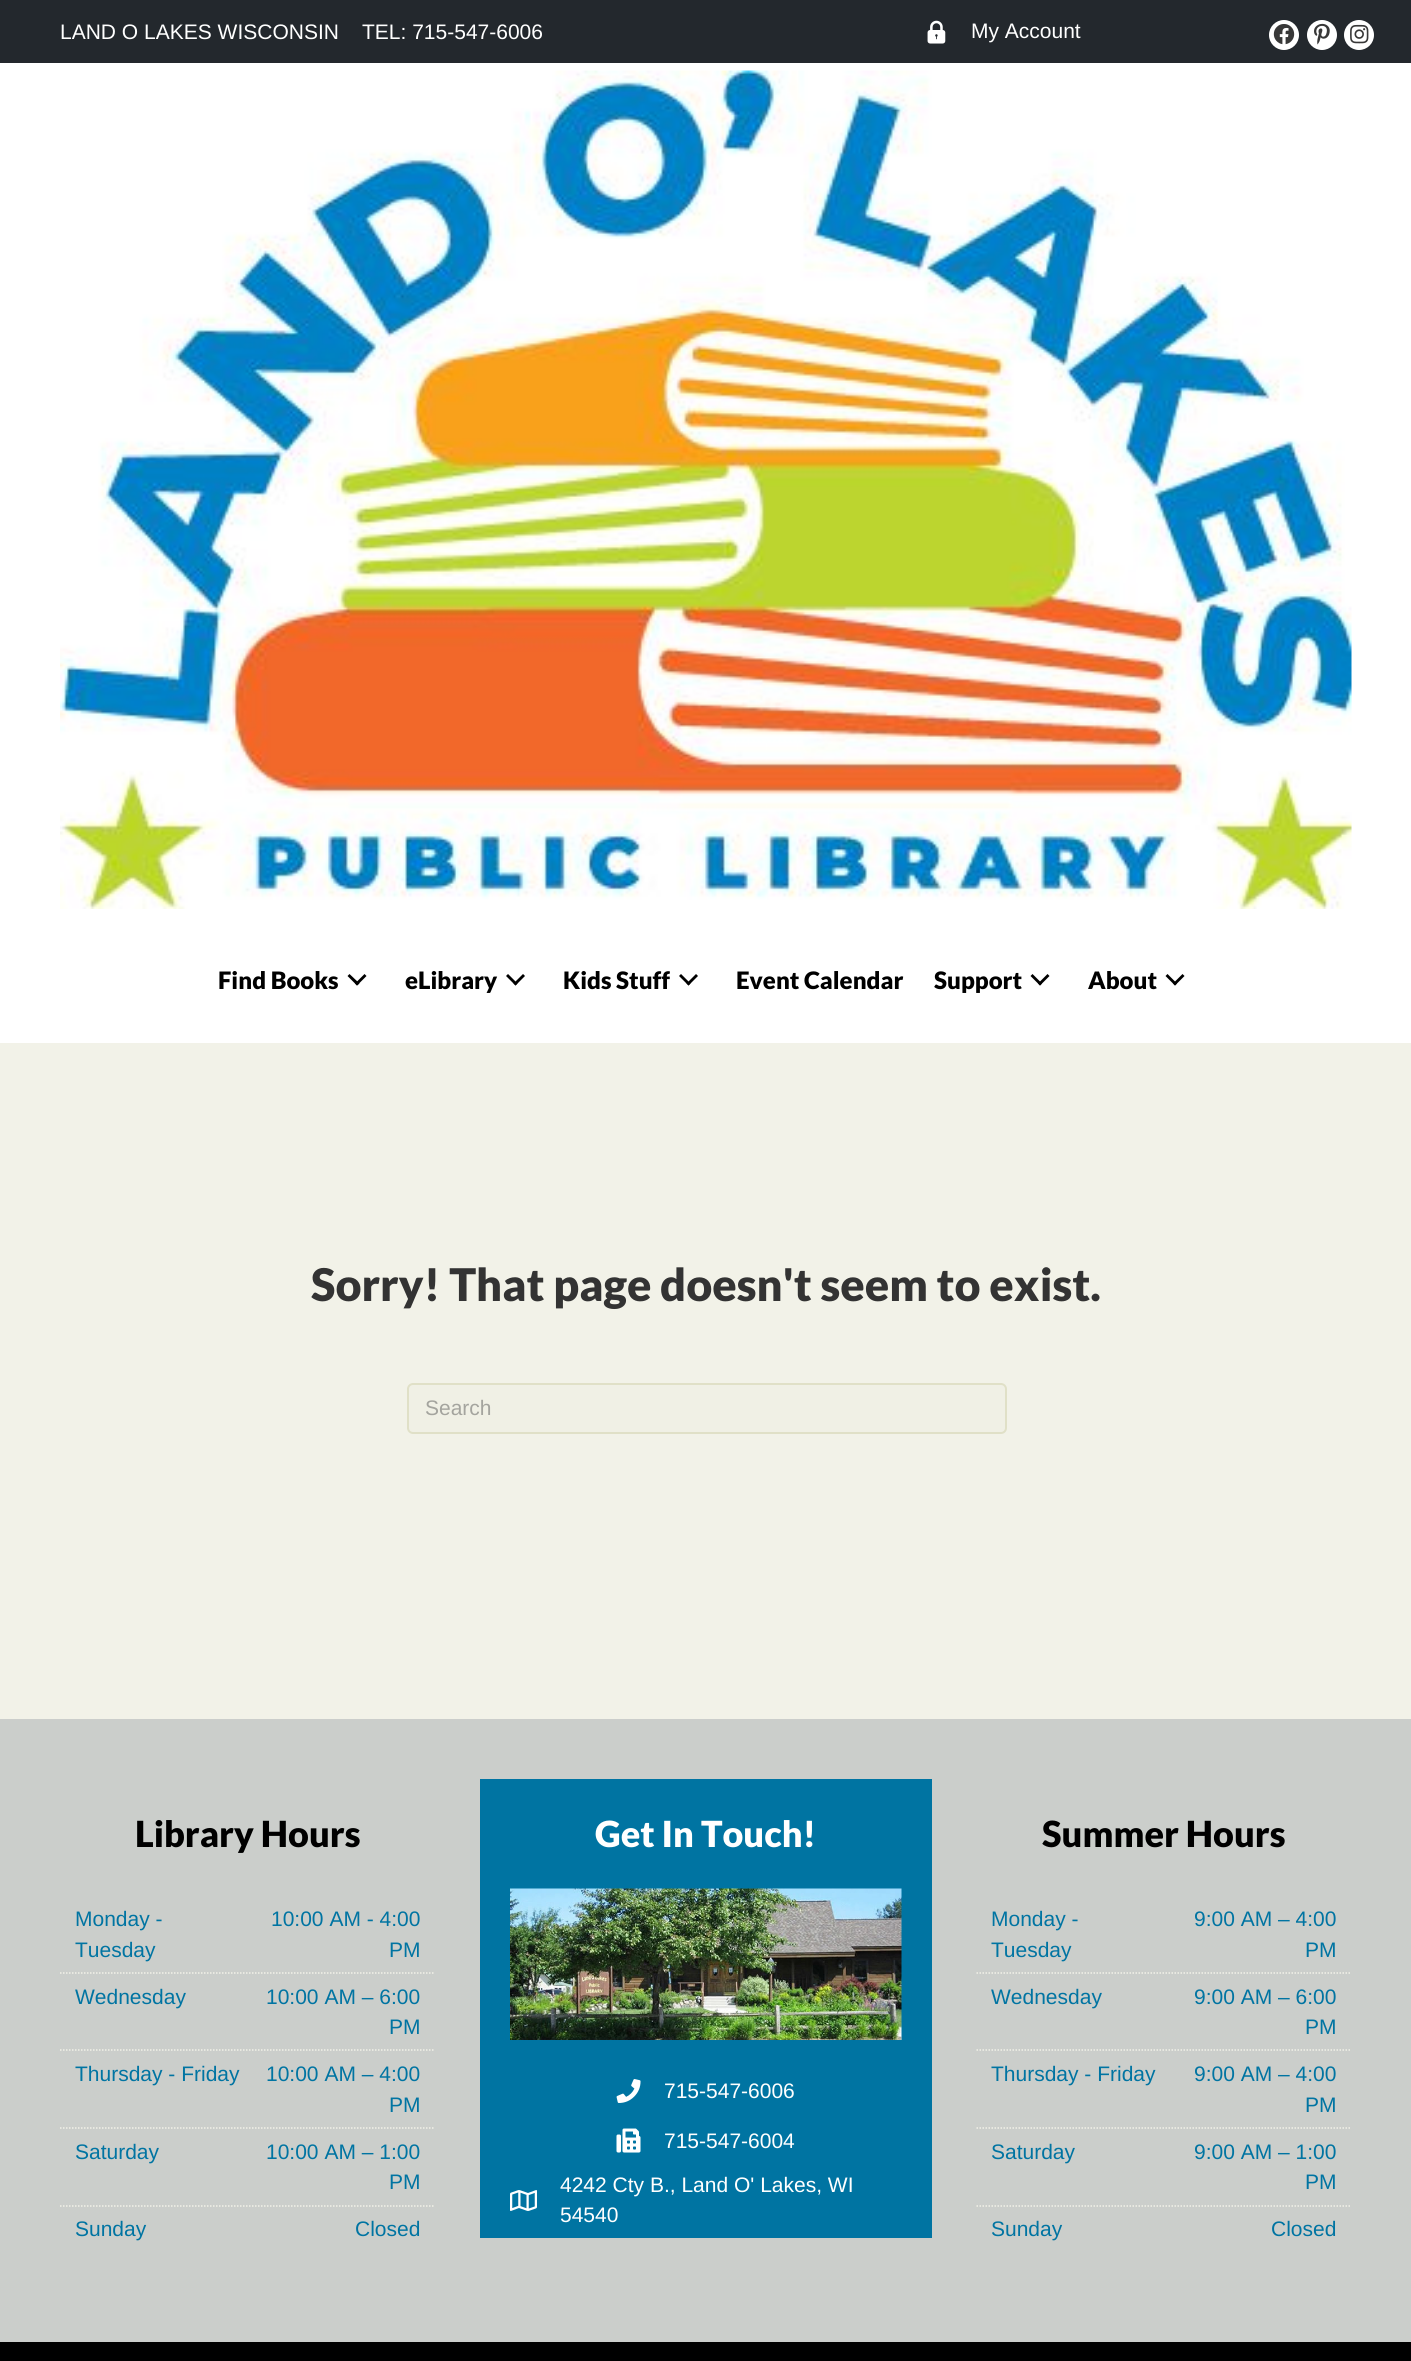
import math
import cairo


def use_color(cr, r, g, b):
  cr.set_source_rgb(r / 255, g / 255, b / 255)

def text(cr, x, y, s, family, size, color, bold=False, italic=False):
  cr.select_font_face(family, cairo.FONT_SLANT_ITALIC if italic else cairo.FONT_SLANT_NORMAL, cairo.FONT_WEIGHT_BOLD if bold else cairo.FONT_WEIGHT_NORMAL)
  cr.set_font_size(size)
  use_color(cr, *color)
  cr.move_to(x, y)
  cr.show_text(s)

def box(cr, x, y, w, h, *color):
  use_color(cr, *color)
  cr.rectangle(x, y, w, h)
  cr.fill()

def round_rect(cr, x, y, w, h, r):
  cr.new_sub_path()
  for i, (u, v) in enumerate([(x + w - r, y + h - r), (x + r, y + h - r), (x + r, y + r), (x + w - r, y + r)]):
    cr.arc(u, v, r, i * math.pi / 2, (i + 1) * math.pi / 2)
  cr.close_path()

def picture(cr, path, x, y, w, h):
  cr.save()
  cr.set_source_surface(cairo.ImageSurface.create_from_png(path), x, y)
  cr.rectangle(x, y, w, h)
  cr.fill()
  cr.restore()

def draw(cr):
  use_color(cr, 255, 255, 255)
  cr.paint()
  box(cr, 0, 0, 1411, 63, 35, 40, 45)
  picture(cr, "img_01.png", 927, 20, 19, 24)
  use_color(cr, 255, 255, 255)
  cr.arc(1284, 35, 15, 0, 2 * math.pi)
  cr.fill()
  picture(cr, "img_02.png", 1273, 24, 22, 21)
  cr.arc(1322, 35, 15, 0, 2 * math.pi)
  cr.fill()
  picture(cr, "img_03.png", 1314, 23, 16, 22)
  cr.arc(1359, 35, 15, 0, 2 * math.pi)
  cr.fill()
  picture(cr, "img_04.png", 1350, 24, 19, 20)
  picture(cr, "img_05.png", 60, 70, 1292, 839)
  use_color(cr, 0, 0, 0)
  cr.new_path()
  cr.move_to(364.5, 974)
  cr.line_to(366.5, 976)
  cr.line_to(357, 985.5)
  cr.line_to(355, 983.5)
  cr.close_path()
  cr.fill()
  cr.new_path()
  cr.move_to(349.5, 974)
  cr.line_to(359.5, 983.5)
  cr.line_to(357, 985.5)
  cr.line_to(347.5, 976)
  cr.close_path()
  cr.fill()
  cr.new_path()
  cr.move_to(523, 974)
  cr.line_to(525, 976)
  cr.line_to(515.5, 985.5)
  cr.line_to(513.5, 983.5)
  cr.close_path()
  cr.fill()
  cr.new_path()
  cr.move_to(508, 974)
  cr.line_to(517.5, 983.5)
  cr.line_to(515.5, 985.5)
  cr.line_to(506, 976)
  cr.close_path()
  cr.fill()
  cr.new_path()
  cr.move_to(696, 974)
  cr.line_to(698, 976)
  cr.line_to(688.5, 985.5)
  cr.line_to(686.5, 983.5)
  cr.close_path()
  cr.fill()
  cr.new_path()
  cr.move_to(681, 974)
  cr.line_to(690.5, 983.5)
  cr.line_to(688.5, 985.5)
  cr.line_to(679, 976)
  cr.close_path()
  cr.fill()
  cr.new_path()
  cr.move_to(1047.5, 974)
  cr.line_to(1049.5, 976)
  cr.line_to(1040, 985.5)
  cr.line_to(1038, 983.5)
  cr.close_path()
  cr.fill()
  cr.new_path()
  cr.move_to(1032.5, 974)
  cr.line_to(1042, 983.5)
  cr.line_to(1040, 985.5)
  cr.line_to(1030.5, 976)
  cr.close_path()
  cr.fill()
  cr.new_path()
  cr.move_to(1182.5, 974)
  cr.line_to(1184.5, 976)
  cr.line_to(1175, 985.5)
  cr.line_to(1173, 983.5)
  cr.close_path()
  cr.fill()
  cr.new_path()
  cr.move_to(1167.5, 974)
  cr.line_to(1177, 983.5)
  cr.line_to(1175, 985.5)
  cr.line_to(1165.5, 976)
  cr.close_path()
  cr.fill()
  box(cr, 0, 1043, 1411, 676, 242, 242, 232)
  use_color(cr, 240, 240, 229)
  round_rect(cr, 408, 1384, 598, 49, 5)
  cr.fill_preserve()
  use_color(cr, 224, 224, 199)
  cr.stroke()
  box(cr, 0, 1719, 1411, 623, 203, 206, 203)
  cr.new_path()
  cr.move_to(60, 1973)
  cr.line_to(435, 1973)
  use_color(cr, 242, 242, 232)
  cr.set_line_width(1.5)
  cr.set_dash([1.5, 1.5])
  cr.stroke()
  cr.new_path()
  cr.move_to(60, 2050)
  cr.line_to(435, 2050)
  cr.stroke()
  cr.new_path()
  cr.move_to(60, 2128)
  cr.line_to(435, 2128)
  cr.stroke()
  cr.new_path()
  cr.move_to(60, 2206)
  cr.line_to(435, 2206)
  cr.stroke()
  box(cr, 480, 1779, 452, 459, 0, 116, 162)
  picture(cr, "img_06.png", 510, 1888, 392, 152)
  picture(cr, "img_07.png", 616, 2079, 25, 24)
  picture(cr, "img_08.png", 616, 2128, 25, 25)
  picture(cr, "img_09.png", 510, 2190, 27, 21)
  cr.new_path()
  cr.move_to(976.5, 1973)
  cr.line_to(1351.5, 1973)
  use_color(cr, 242, 242, 232)
  cr.stroke()
  cr.new_path()
  cr.move_to(976.5, 2050)
  cr.line_to(1351.5, 2050)
  cr.stroke()
  cr.new_path()
  cr.move_to(976.5, 2128)
  cr.line_to(1351.5, 2128)
  cr.stroke()
  cr.new_path()
  cr.move_to(976.5, 2206)
  cr.line_to(1351.5, 2206)
  cr.stroke()
  box(cr, 0, 2342, 1411, 19, 0, 0, 0)
  text(cr, 60, 39, "LAND O LAKES WISCONSIN", "Liberation Sans", 21, (255, 255, 255))
  text(cr, 362, 39, "TEL: 715-547-6006", "Liberation Sans", 21, (255, 255, 255))
  text(cr, 971, 38, "My Account", "Liberation Sans", 21, (255, 255, 255))
  text(cr, 218, 989, "Find Books", "Lato Black", 24, (0, 0, 0))
  text(cr, 405, 989, "eLibrary", "Lato Black", 24, (0, 0, 0))
  text(cr, 563, 989, "Kids Stuff", "Lato Black", 24, (0, 0, 0))
  text(cr, 736, 989, "Event Calendar", "Lato Black", 24, (0, 0, 0))
  text(cr, 934, 989, "Support", "Lato Black", 24, (0, 0, 0))
  text(cr, 1088, 989, "About", "Lato Black", 24, (0, 0, 0))
  text(cr, 311, 1301, "Sorry! That page doesn't seem to exist.", "Lato Black", 45, (51, 51, 51))
  text(cr, 425, 1415, "Search", "Liberation Sans", 21, (164, 164, 158))
  text(cr, 135, 1847, "Library Hours", "Lato Black", 36, (0, 0, 0))
  text(cr, 75, 1926, "Monday -", "Liberation Sans", 21, (0, 116, 162))
  text(cr, 75, 1957, "Tuesday", "Liberation Sans", 21, (0, 116, 162))
  text(cr, 271, 1926, "10:00 AM - 4:00", "Liberation Sans", 21, (0, 116, 162))
  text(cr, 389, 1957, "PM", "Liberation Sans", 21, (0, 116, 162))
  text(cr, 75, 2004, "Wednesday", "Liberation Sans", 21, (0, 116, 162))
  text(cr, 266, 2004, "10:00 AM – 6:00", "Liberation Sans", 21, (0, 116, 162))
  text(cr, 389, 2034, "PM", "Liberation Sans", 21, (0, 116, 162))
  text(cr, 75, 2081, "Thursday - Friday", "Liberation Sans", 21, (0, 116, 162))
  text(cr, 266, 2081, "10:00 AM – 4:00", "Liberation Sans", 21, (0, 116, 162))
  text(cr, 389, 2112, "PM", "Liberation Sans", 21, (0, 116, 162))
  text(cr, 75, 2159, "Saturday", "Liberation Sans", 21, (0, 116, 162))
  text(cr, 266, 2159, "10:00 AM – 1:00", "Liberation Sans", 21, (0, 116, 162))
  text(cr, 389, 2189, "PM", "Liberation Sans", 21, (0, 116, 162))
  text(cr, 75, 2236, "Sunday", "Liberation Sans", 21, (0, 116, 162))
  text(cr, 355, 2236, "Closed", "Liberation Sans", 21, (0, 116, 162))
  text(cr, 595, 1847, "Get In Touch!", "Lato Black", 36, (255, 255, 255))
  text(cr, 664, 2098, "715-547-6006", "Liberation Sans", 21, (255, 255, 255))
  text(cr, 664, 2148, "715-547-6004", "Liberation Sans", 21, (255, 255, 255))
  text(cr, 560, 2192, "4242 Cty B., Land O' Lakes, WI", "Liberation Sans", 21, (255, 255, 255))
  text(cr, 560, 2222, "54540", "Liberation Sans", 21, (255, 255, 255))
  text(cr, 1042, 1847, "Summer Hours", "Lato Black", 36, (0, 0, 0))
  text(cr, 991, 1926, "Monday -", "Liberation Sans", 21, (0, 116, 162))
  text(cr, 991, 1957, "Tuesday", "Liberation Sans", 21, (0, 116, 162))
  text(cr, 1194, 1926, "9:00 AM – 4:00", "Liberation Sans", 21, (0, 116, 162))
  text(cr, 1305, 1957, "PM", "Liberation Sans", 21, (0, 116, 162))
  text(cr, 991, 2004, "Wednesday", "Liberation Sans", 21, (0, 116, 162))
  text(cr, 1194, 2004, "9:00 AM – 6:00", "Liberation Sans", 21, (0, 116, 162))
  text(cr, 1305, 2034, "PM", "Liberation Sans", 21, (0, 116, 162))
  text(cr, 991, 2081, "Thursday - Friday", "Liberation Sans", 21, (0, 116, 162))
  text(cr, 1194, 2081, "9:00 AM – 4:00", "Liberation Sans", 21, (0, 116, 162))
  text(cr, 1305, 2112, "PM", "Liberation Sans", 21, (0, 116, 162))
  text(cr, 991, 2159, "Saturday", "Liberation Sans", 21, (0, 116, 162))
  text(cr, 1194, 2159, "9:00 AM – 1:00", "Liberation Sans", 21, (0, 116, 162))
  text(cr, 1305, 2189, "PM", "Liberation Sans", 21, (0, 116, 162))
  text(cr, 991, 2236, "Sunday", "Liberation Sans", 21, (0, 116, 162))
  text(cr, 1271, 2236, "Closed", "Liberation Sans", 21, (0, 116, 162))


surface = cairo.ImageSurface(cairo.FORMAT_RGB24, 1411, 2361)
cr = cairo.Context(surface)
options = cairo.FontOptions()
options.set_hint_metrics(cairo.HINT_METRICS_OFF)
options.set_hint_style(cairo.HINT_STYLE_NONE)
cr.set_font_options(options)
cr.set_miter_limit(4)
draw(cr)
surface.write_to_png("out.png")
